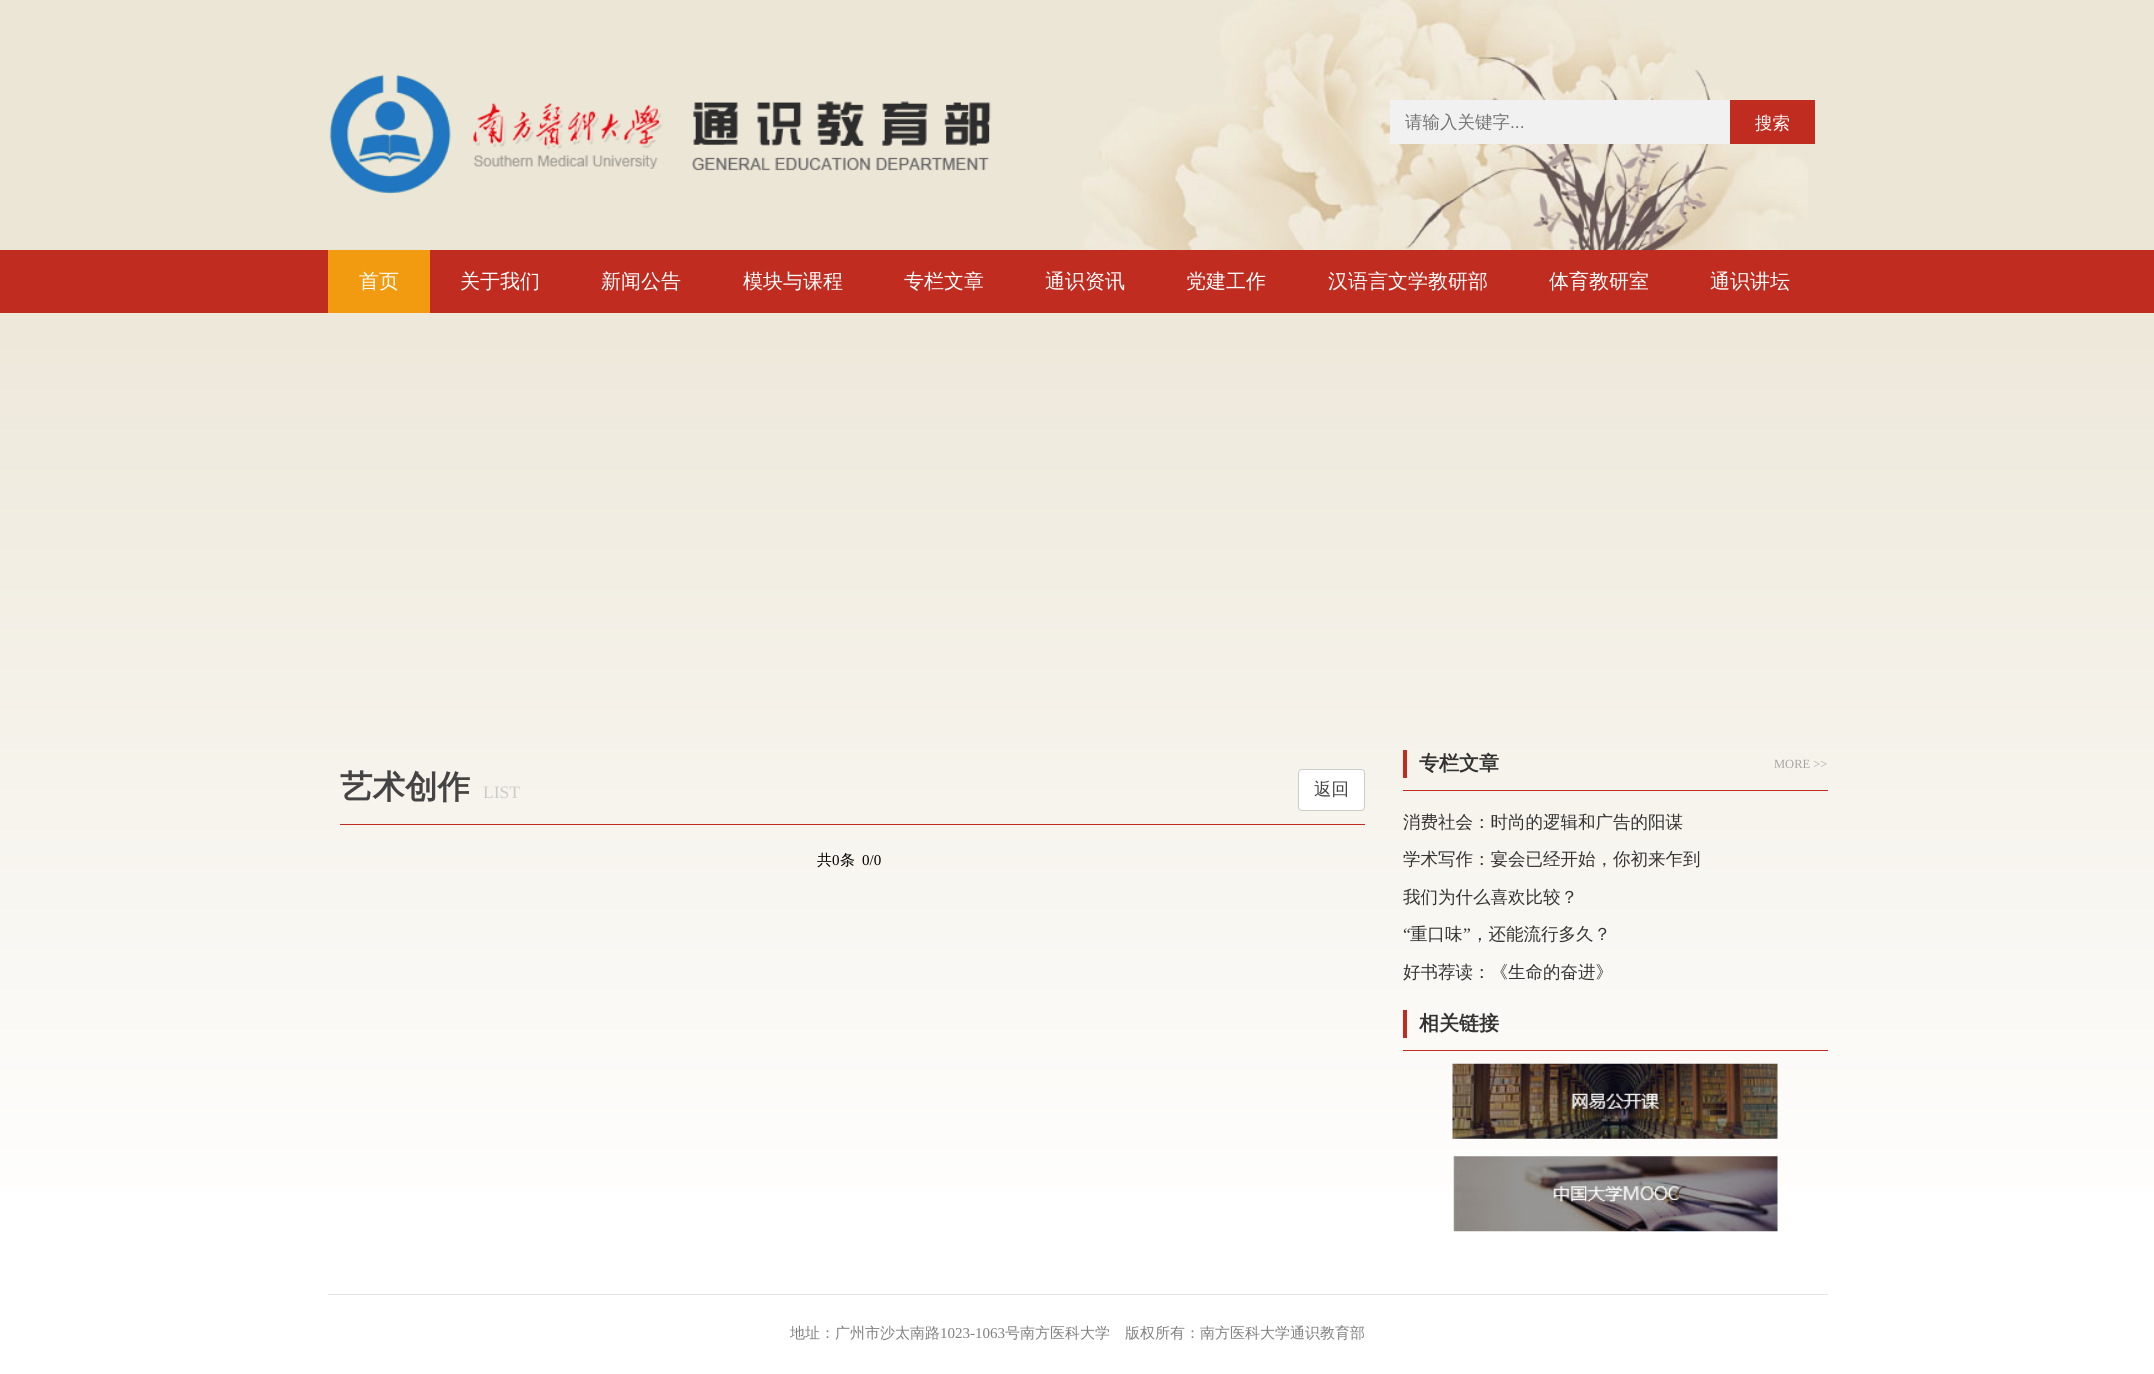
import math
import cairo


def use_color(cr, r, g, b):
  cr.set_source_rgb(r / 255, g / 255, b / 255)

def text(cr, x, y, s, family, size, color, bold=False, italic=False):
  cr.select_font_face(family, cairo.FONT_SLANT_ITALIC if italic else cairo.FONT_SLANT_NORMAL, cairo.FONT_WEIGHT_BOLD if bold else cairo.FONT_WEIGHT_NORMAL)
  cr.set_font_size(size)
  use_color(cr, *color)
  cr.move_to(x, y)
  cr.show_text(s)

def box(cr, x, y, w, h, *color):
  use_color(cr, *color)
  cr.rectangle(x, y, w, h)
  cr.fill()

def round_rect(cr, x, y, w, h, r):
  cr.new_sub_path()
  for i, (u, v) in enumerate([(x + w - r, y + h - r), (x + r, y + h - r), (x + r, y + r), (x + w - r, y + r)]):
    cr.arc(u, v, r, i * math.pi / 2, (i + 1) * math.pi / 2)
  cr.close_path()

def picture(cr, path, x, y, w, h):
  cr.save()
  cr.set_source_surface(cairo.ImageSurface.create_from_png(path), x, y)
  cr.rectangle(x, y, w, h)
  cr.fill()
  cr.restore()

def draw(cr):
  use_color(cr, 255, 255, 255)
  cr.paint()
  box(cr, 0, 0, 2154, 250, 236, 230, 215)
  picture(cr, "img_01.png", 1082, 0, 726, 250)
  picture(cr, "img_02.png", 329, 74, 662, 120)
  box(cr, 1390, 100, 340, 44, 241, 241, 241)
  box(cr, 1730, 100, 85, 44, 193, 44, 32)
  gradient = cairo.LinearGradient(1078, 250, 1078, 1249)
  gradient.add_color_stop_rgba(0, 0.925, 0.902, 0.843, 1)
  gradient.add_color_stop_rgba(1, 1, 1, 1, 1)
  cr.set_source(gradient)
  cr.rectangle(0, 313, 2154, 874)
  cr.fill()
  box(cr, 0, 250, 2154, 63, 193, 44, 32)
  box(cr, 328, 250, 102, 63, 242, 155, 16)
  box(cr, 340, 824, 1025, 1, 192, 44, 32)
  use_color(cr, 255, 255, 255)
  round_rect(cr, 1298.5, 769.5, 66, 41, 3.5)
  cr.fill_preserve()
  use_color(cr, 204, 204, 204)
  cr.set_line_width(1)
  cr.stroke()
  box(cr, 1403, 750, 4, 28, 193, 44, 32)
  box(cr, 1403, 790, 425, 1, 192, 44, 32)
  box(cr, 1403, 1010, 4, 28, 193, 44, 32)
  box(cr, 1403, 1050, 425, 1, 192, 44, 32)
  picture(cr, "img_03.png", 1452, 1063, 326, 76)
  picture(cr, "img_04.png", 1453, 1156, 325, 76)
  box(cr, 328, 1294, 1500, 1, 229, 229, 229)
  text(cr, 1405, 128, "请输入关键字", "WenQuanYi Zen Hei Medium", 17.5, (117, 117, 117))
  text(cr, 1510, 128, "...", "Liberation Sans", 17.5, (117, 117, 117))
  text(cr, 1755, 129, "搜索", "WenQuanYi Zen Hei Medium", 17.5, (255, 255, 255))
  text(cr, 359, 288, "首页", "WenQuanYi Zen Hei Medium", 20, (255, 255, 255))
  text(cr, 460, 288, "关于我们", "WenQuanYi Zen Hei Medium", 20, (255, 255, 255))
  text(cr, 601, 288, "新闻公告", "WenQuanYi Zen Hei Medium", 20, (255, 255, 255))
  text(cr, 743, 288, "模块与课程", "WenQuanYi Zen Hei Medium", 20, (255, 255, 255))
  text(cr, 904, 288, "专栏文章", "WenQuanYi Zen Hei Medium", 20, (255, 255, 255))
  text(cr, 1045, 288, "通识资讯", "WenQuanYi Zen Hei Medium", 20, (255, 255, 255))
  text(cr, 1186, 288, "党建工作", "WenQuanYi Zen Hei Medium", 20, (255, 255, 255))
  text(cr, 1328, 288, "汉语言文学教研部", "WenQuanYi Zen Hei Medium", 20, (255, 255, 255))
  text(cr, 1549, 288, "体育教研室", "WenQuanYi Zen Hei Medium", 20, (255, 255, 255))
  text(cr, 1710, 288, "通识讲坛", "WenQuanYi Zen Hei Medium", 20, (255, 255, 255))
  text(cr, 340, 798, "艺术创作", "WenQuanYi Zen Hei", 32.5, (68, 68, 68), bold=True)
  text(cr, 483, 798, "LIST", "Liberation Serif", 17.5, (204, 204, 204))
  text(cr, 1314, 795, "返回", "WenQuanYi Zen Hei Medium", 17.5, (68, 68, 68))
  text(cr, 817, 865, "共", "WenQuanYi Zen Hei Medium", 15, (0, 0, 0))
  text(cr, 832, 865, "0", "Liberation Serif", 15, (0, 0, 0))
  text(cr, 840, 865, "条", "WenQuanYi Zen Hei Medium", 15, (0, 0, 0))
  text(cr, 862, 865, "0/0", "Liberation Serif", 15, (0, 0, 0))
  text(cr, 1419, 770, "专栏文章", "WenQuanYi Zen Hei", 20, (51, 51, 51), bold=True)
  text(cr, 1774, 768, "MORE >>", "Liberation Serif", 12.5, (166, 165, 164))
  text(cr, 1403, 828, "消费社会：时尚的逻辑和广告的阳谋", "WenQuanYi Zen Hei Medium", 17.5, (51, 51, 51))
  text(cr, 1403, 865, "学术写作：宴会已经开始，你初来乍到", "WenQuanYi Zen Hei Medium", 17.5, (51, 51, 51))
  text(cr, 1403, 903, "我们为什么喜欢比较？", "WenQuanYi Zen Hei Medium", 17.5, (51, 51, 51))
  text(cr, 1403, 940, "“", "Liberation Serif", 17.5, (51, 51, 51))
  text(cr, 1410, 940, "重口味", "WenQuanYi Zen Hei Medium", 17.5, (51, 51, 51))
  text(cr, 1463, 940, "”", "Liberation Serif", 17.5, (51, 51, 51))
  text(cr, 1471, 940, "，还能流行多久？", "WenQuanYi Zen Hei Medium", 17.5, (51, 51, 51))
  text(cr, 1403, 978, "好书荐读：《生命的奋进》", "WenQuanYi Zen Hei Medium", 17.5, (51, 51, 51))
  text(cr, 1419, 1030, "相关链接", "WenQuanYi Zen Hei", 20, (51, 51, 51), bold=True)
  text(cr, 790, 1338, "地址：广州市沙太南路", "WenQuanYi Zen Hei Medium", 15, (128, 128, 128))
  text(cr, 940, 1338, "1023-1063", "Liberation Serif", 15, (128, 128, 128))
  text(cr, 1005, 1338, "号南方医科大学", "WenQuanYi Zen Hei Medium", 15, (128, 128, 128))
  text(cr, 1125, 1338, "版权所有：南方医科大学通识教育部", "WenQuanYi Zen Hei Medium", 15, (128, 128, 128))


surface = cairo.ImageSurface(cairo.FORMAT_RGB24, 2154, 1374)
cr = cairo.Context(surface)
options = cairo.FontOptions()
options.set_hint_metrics(cairo.HINT_METRICS_OFF)
options.set_hint_style(cairo.HINT_STYLE_NONE)
cr.set_font_options(options)
cr.set_miter_limit(4)
draw(cr)
surface.write_to_png("out.png")
